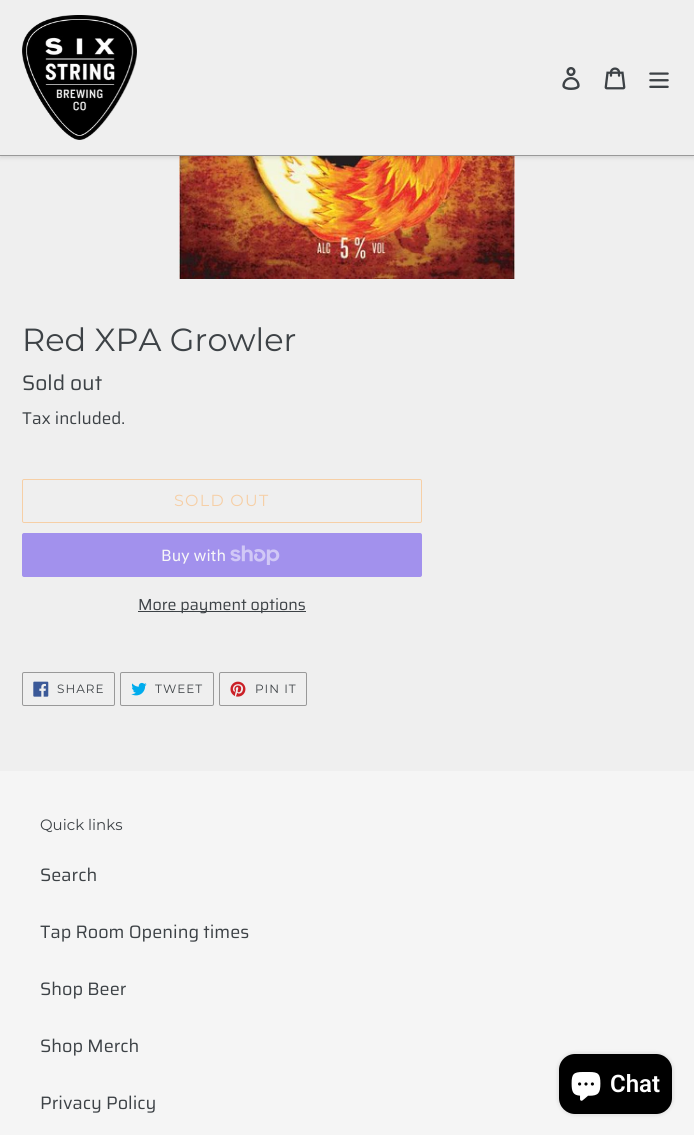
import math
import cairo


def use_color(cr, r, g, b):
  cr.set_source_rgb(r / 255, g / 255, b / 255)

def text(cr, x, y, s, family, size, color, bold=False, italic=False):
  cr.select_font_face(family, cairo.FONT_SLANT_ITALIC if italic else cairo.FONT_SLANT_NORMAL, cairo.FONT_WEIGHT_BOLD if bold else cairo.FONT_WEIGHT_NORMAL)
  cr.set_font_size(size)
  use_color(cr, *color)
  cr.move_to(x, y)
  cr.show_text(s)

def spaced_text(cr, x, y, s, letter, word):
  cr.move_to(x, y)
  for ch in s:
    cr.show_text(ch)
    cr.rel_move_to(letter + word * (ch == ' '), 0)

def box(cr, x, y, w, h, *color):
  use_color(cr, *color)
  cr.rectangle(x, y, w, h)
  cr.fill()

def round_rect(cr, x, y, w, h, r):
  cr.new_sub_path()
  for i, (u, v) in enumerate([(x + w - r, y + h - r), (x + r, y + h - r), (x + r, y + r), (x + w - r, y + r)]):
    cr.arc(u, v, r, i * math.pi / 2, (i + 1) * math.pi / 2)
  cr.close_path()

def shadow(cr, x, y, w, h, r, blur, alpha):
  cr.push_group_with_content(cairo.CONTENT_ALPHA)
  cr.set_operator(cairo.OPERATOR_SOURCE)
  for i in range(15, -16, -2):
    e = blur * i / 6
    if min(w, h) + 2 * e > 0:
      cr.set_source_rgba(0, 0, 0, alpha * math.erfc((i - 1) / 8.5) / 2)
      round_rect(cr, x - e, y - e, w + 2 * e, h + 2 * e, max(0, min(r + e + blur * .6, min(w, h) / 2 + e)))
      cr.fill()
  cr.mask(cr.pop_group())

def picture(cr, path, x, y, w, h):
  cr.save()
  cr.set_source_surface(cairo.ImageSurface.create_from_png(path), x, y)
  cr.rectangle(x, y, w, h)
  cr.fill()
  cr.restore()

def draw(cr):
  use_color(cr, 239, 239, 239)
  cr.paint()
  picture(cr, "img_05.png", 179, 156, 336, 123)
  use_color(cr, 0, 0, 0)
  shadow(cr, 0, 2, 694, 156, 0, 2, 0.1)
  box(cr, 0, 0, 694, 155, 239, 239, 239)
  box(cr, 0, 155, 694, 1, 153, 153, 153)
  picture(cr, "img_01.png", 22, 15, 115, 125)
  picture(cr, "img_02.png", 562, 67, 18, 23)
  picture(cr, "img_03.png", 604, 67, 22, 23)
  picture(cr, "img_04.png", 649, 72, 20, 16)
  round_rect(cr, 22.5, 479.5, 399, 43, 1.5)
  use_color(cr, 246, 207, 166)
  cr.set_line_width(1)
  cr.stroke()
  use_color(cr, 162, 145, 237)
  round_rect(cr, 22, 533, 400, 44, 2)
  cr.fill()
  picture(cr, "img_06.png", 230, 545, 50, 20)
  box(cr, 138, 611, 168, 1, 61, 66, 70)
  round_rect(cr, 22.5, 672.5, 92, 33, 1.5)
  use_color(cr, 153, 153, 153)
  cr.stroke()
  picture(cr, "img_07.png", 33, 681, 16, 16)
  round_rect(cr, 120.5, 672.5, 93, 33, 1.5)
  cr.stroke()
  picture(cr, "img_08.png", 131, 682, 16, 14)
  round_rect(cr, 219.5, 672.5, 87, 33, 1.5)
  cr.stroke()
  picture(cr, "img_09.png", 230, 681, 16, 16)
  box(cr, 0, 771, 694, 364, 245, 245, 245)
  use_color(cr, 0, 0, 0)
  shadow(cr, 559, 1054, 113, 60, 16, 2.5, 0.15)
  use_color(cr, 0, 0, 0)
  round_rect(cr, 559, 1054, 113, 60, 16)
  cr.fill()
  picture(cr, "img_10.png", 571, 1072, 30, 29)
  text(cr, 22, 351, "Red XPA Growler", "Montserrat", 32, (61, 66, 70))
  text(cr, 22, 390, "Sold out", "Saira", 21, (61, 66, 70))
  text(cr, 22, 424, "Tax included.", "Saira", 17, (61, 66, 70))
  cr.select_font_face("Montserrat")
  cr.set_font_size(16)
  use_color(cr, 246, 207, 166)
  spaced_text(cr, 174, 506, "SOLD OUT", 1.25, 0)
  text(cr, 161, 561, "Buy with", "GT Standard", 16, (247, 247, 247))
  text(cr, 138, 610, "More payment options", "Saira", 16, (61, 66, 70))
  cr.select_font_face("Montserrat")
  cr.set_font_size(12)
  spaced_text(cr, 57, 693, "SHARE", 1, 0)
  spaced_text(cr, 155, 693, "TWEET", 1, 0)
  spaced_text(cr, 255, 693, "PIN IT", 1, 0)
  text(cr, 40, 830, "Quick links", "Montserrat", 15, (61, 66, 70))
  text(cr, 40, 881, "Search", "Saira", 18, (61, 66, 70))
  text(cr, 40, 938, "Tap Room Opening times", "Saira", 18, (61, 66, 70))
  text(cr, 40, 995, "Shop Beer", "Saira", 18, (61, 66, 70))
  text(cr, 40, 1052, "Shop Merch", "Saira", 18, (61, 66, 70))
  text(cr, 40, 1109, "Privacy Policy", "Saira", 18, (61, 66, 70))
  text(cr, 610, 1092, "Chat", "Roboto SemiBold", 24, (255, 255, 255))


surface = cairo.ImageSurface(cairo.FORMAT_RGB24, 694, 1135)
cr = cairo.Context(surface)
options = cairo.FontOptions()
options.set_hint_metrics(cairo.HINT_METRICS_OFF)
options.set_hint_style(cairo.HINT_STYLE_NONE)
cr.set_font_options(options)
cr.set_miter_limit(4)
draw(cr)
surface.write_to_png("out.png")
